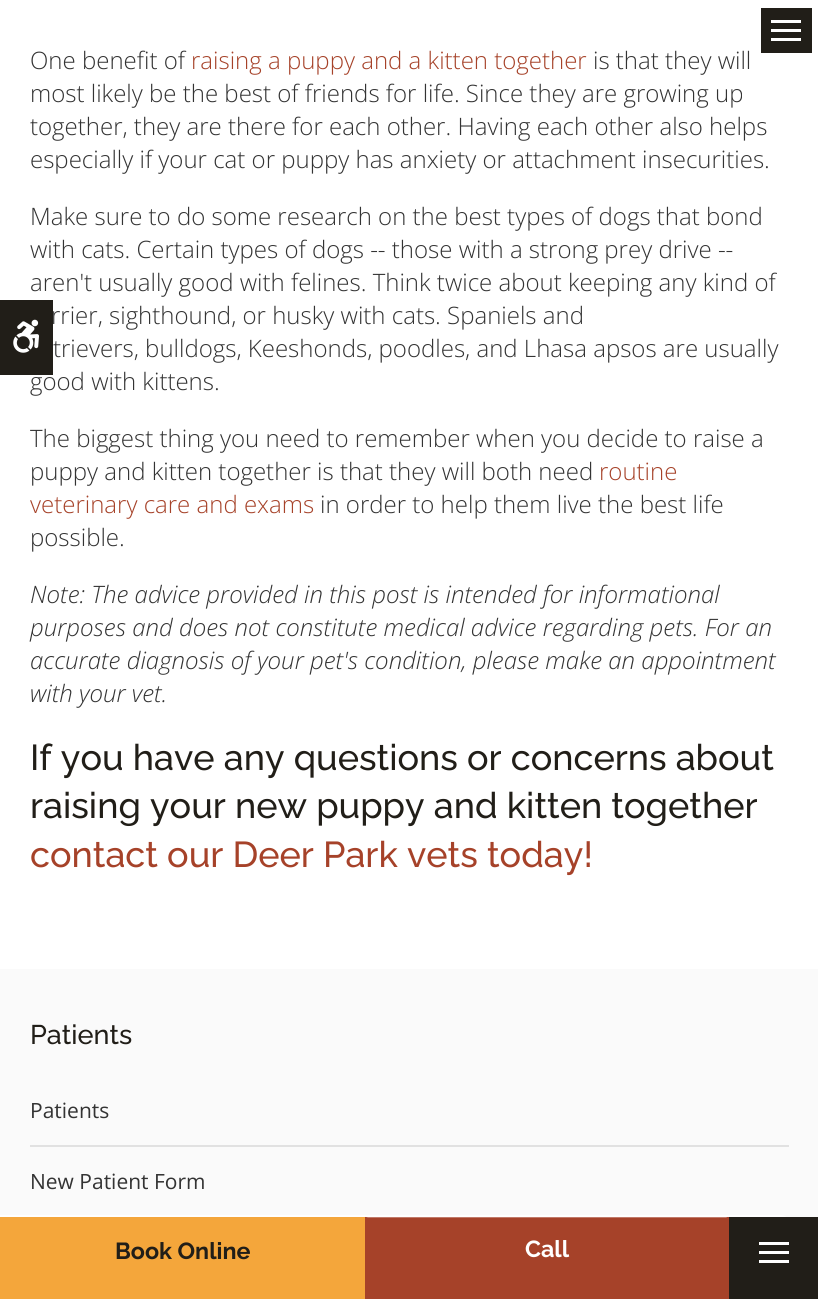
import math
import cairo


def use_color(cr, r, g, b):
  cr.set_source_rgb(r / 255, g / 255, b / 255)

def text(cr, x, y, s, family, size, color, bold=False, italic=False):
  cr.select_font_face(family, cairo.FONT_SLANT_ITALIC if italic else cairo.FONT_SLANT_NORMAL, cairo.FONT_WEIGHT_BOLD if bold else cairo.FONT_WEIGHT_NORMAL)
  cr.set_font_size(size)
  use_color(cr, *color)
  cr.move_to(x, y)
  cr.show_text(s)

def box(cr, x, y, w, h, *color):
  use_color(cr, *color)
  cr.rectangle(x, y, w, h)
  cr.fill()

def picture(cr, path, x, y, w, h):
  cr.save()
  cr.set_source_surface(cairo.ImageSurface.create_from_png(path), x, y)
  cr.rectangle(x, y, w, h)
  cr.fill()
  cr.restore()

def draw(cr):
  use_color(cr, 250, 250, 250)
  cr.paint()
  box(cr, 0, 0, 818, 969, 255, 255, 255)
  box(cr, 761, 8, 51, 45, 33, 30, 24)
  box(cr, 771, 20, 30, 3, 255, 255, 255)
  box(cr, 771, 29, 30, 3, 255, 255, 255)
  box(cr, 771, 38, 30, 3, 255, 255, 255)
  box(cr, 30, 1145, 759, 2, 225, 225, 225)
  use_color(cr, 255, 255, 255)
  cr.new_path()
  cr.move_to(0, 1215)
  cr.line_to(781, 1215)
  cr.curve_to(785.5, 1215, 789, 1218.5, 789, 1223)
  cr.line_to(789, 1276)
  cr.curve_to(789, 1280.5, 785.5, 1284, 781, 1284)
  cr.line_to(0, 1284)
  cr.close_path()
  cr.fill()
  box(cr, 0, 1217, 365, 82, 244, 166, 59)
  box(cr, 365, 1217, 364, 82, 166, 66, 41)
  cr.set_source_rgba(1, 1, 1, 0.3)
  cr.new_path()
  cr.move_to(364, 1216)
  cr.line_to(729, 1216)
  cr.line_to(726, 1218)
  cr.line_to(368, 1218)
  cr.close_path()
  cr.fill()
  box(cr, 729, 1217, 89, 82, 33, 30, 24)
  box(cr, 759, 1242, 30, 3, 255, 255, 255)
  box(cr, 759, 1251, 30, 3, 255, 255, 255)
  box(cr, 759, 1260, 30, 3, 255, 255, 255)
  text(cr, 30, 69, "One benefit of", "Open Sans Light", 24, (51, 51, 51))
  text(cr, 191, 69, "raising a puppy and a kitten together", "Open Sans Light", 24, (166, 66, 41))
  text(cr, 593, 69, "is that they will", "Open Sans Light", 24, (51, 51, 51))
  text(cr, 30, 102, "most likely be the best of friends for life. Since they are growing up", "Open Sans Light", 24, (51, 51, 51))
  text(cr, 30, 135, "together, they are there for each other. Having each other also helps", "Open Sans Light", 24, (51, 51, 51))
  text(cr, 30, 168, "especially if your cat or puppy has anxiety or attachment insecurities.", "Open Sans Light", 24, (51, 51, 51))
  text(cr, 30, 225, "Make sure to do some research on the best types of dogs that bond", "Open Sans Light", 24, (51, 51, 51))
  text(cr, 30, 258, "with cats. Certain types of dogs -- those with a strong prey drive --", "Open Sans Light", 24, (51, 51, 51))
  text(cr, 30, 291, "aren't usually good with felines. Think twice about keeping any kind of", "Open Sans Light", 24, (51, 51, 51))
  text(cr, 51, 324, "rrier, sighthound, or husky with cats. Spaniels and", "Open Sans Light", 24, (51, 51, 51))
  text(cr, 53, 357, "trievers, bulldogs, Keeshonds, poodles, and Lhasa apsos are usually", "Open Sans Light", 24, (51, 51, 51))
  text(cr, 30, 390, "good with kittens.", "Open Sans Light", 24, (51, 51, 51))
  box(cr, 0, 300, 53, 75, 33, 30, 24)
  picture(cr, "img_01.png", 13, 319, 26, 34)
  text(cr, 30, 447, "The biggest thing you need to remember when you decide to raise a", "Open Sans Light", 24, (51, 51, 51))
  text(cr, 30, 480, "puppy and kitten together is that they will both need", "Open Sans Light", 24, (51, 51, 51))
  text(cr, 599, 480, "routine", "Open Sans Light", 24, (166, 66, 41))
  text(cr, 30, 513, "veterinary care and exams", "Open Sans Light", 24, (166, 66, 41))
  text(cr, 320, 513, "in order to help them live the best life", "Open Sans Light", 24, (51, 51, 51))
  text(cr, 30, 546, "possible.", "Open Sans Light", 24, (51, 51, 51))
  text(cr, 30, 603, "Note: The advice provided in this post is intended for informational", "Open Sans Light", 24, (51, 51, 51), italic=True)
  text(cr, 30, 636, "purposes and does not constitute medical advice regarding pets. For an", "Open Sans Light", 24, (51, 51, 51), italic=True)
  text(cr, 30, 669, "accurate diagnosis of your pet's condition, please make an appointment", "Open Sans Light", 24, (51, 51, 51), italic=True)
  text(cr, 30, 702, "with your vet.", "Open Sans Light", 24, (51, 51, 51), italic=True)
  text(cr, 30, 770, "If you have any questions or concerns about", "Raleway Medium", 36, (33, 30, 24))
  text(cr, 30, 818, "raising your new puppy and kitten together", "Raleway Medium", 36, (33, 30, 24))
  text(cr, 30, 867, "contact our Deer Park vets today!", "Raleway Medium", 36, (166, 66, 41))
  text(cr, 30, 1044, "Patients", "Raleway Medium", 27, (33, 30, 24))
  text(cr, 30, 1118, "Patients", "Open Sans", 21, (51, 51, 51))
  text(cr, 30, 1189, "New Patient Form", "Open Sans", 21, (51, 51, 51))
  text(cr, 115, 1259, "Book Online", "Raleway", 23.25, (33, 30, 24), bold=True)
  text(cr, 525, 1257, "Call", "Raleway", 23.25, (255, 255, 255), bold=True)


surface = cairo.ImageSurface(cairo.FORMAT_RGB24, 818, 1299)
cr = cairo.Context(surface)
options = cairo.FontOptions()
options.set_hint_metrics(cairo.HINT_METRICS_OFF)
options.set_hint_style(cairo.HINT_STYLE_NONE)
cr.set_font_options(options)
cr.set_miter_limit(4)
draw(cr)
surface.write_to_png("out.png")
